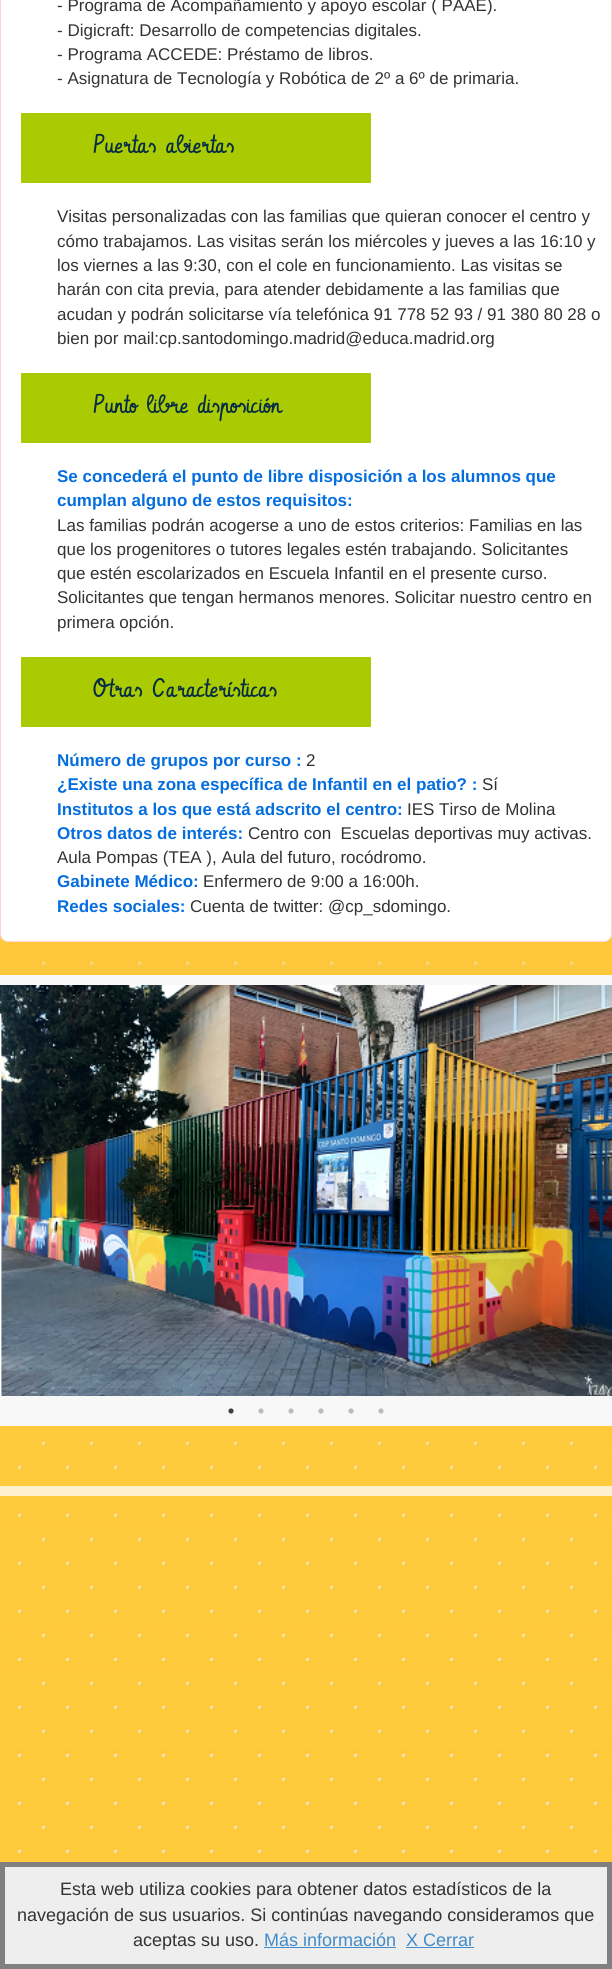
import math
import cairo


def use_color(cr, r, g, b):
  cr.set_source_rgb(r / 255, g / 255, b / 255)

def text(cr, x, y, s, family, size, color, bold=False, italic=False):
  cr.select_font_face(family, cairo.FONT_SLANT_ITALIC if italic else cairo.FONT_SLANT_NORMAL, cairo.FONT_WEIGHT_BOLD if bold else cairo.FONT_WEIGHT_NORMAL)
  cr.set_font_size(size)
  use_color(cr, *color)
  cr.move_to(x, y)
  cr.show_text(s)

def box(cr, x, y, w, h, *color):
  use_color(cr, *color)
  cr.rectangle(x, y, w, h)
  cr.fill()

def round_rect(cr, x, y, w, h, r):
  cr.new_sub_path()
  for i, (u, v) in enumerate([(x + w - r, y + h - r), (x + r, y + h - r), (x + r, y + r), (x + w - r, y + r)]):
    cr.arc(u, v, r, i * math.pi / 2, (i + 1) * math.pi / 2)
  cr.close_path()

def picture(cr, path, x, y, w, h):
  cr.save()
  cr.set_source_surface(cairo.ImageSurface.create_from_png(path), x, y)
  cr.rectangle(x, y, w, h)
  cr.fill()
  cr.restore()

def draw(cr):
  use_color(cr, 255, 255, 255)
  cr.paint()
  picture(cr, "img_01.png", 0, 934, 612, 928)
  box(cr, 0, 1486, 612, 10, 255, 255, 255)
  gradient = cairo.LinearGradient(306, -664, 306, 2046)
  gradient.add_color_stop_rgba(0, 1, 0.745, 0.235, 1)
  gradient.add_color_stop_rgba(0.2, 1, 0.757, 0.235, 0.75)
  gradient.add_color_stop_rgba(0.4, 1, 0.769, 0.235, 0.75)
  gradient.add_color_stop_rgba(0.6, 1, 0.776, 0.235, 0.5)
  gradient.add_color_stop_rgba(0.8, 1, 0.784, 0.235, 0.25)
  gradient.add_color_stop_rgba(1, 1, 0.784, 0.235, 0)
  cr.set_source(gradient)
  cr.rectangle(0, 934, 612, 919)
  cr.fill()
  use_color(cr, 255, 255, 255)
  round_rect(cr, 0.5, -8.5, 611, 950, 7.5)
  cr.fill_preserve()
  use_color(cr, 255, 212, 212)
  cr.set_line_width(1)
  cr.stroke()
  box(cr, 21, 113, 350, 70, 170, 203, 2)
  box(cr, 21, 373, 350, 70, 170, 203, 2)
  box(cr, 21, 657, 350, 70, 170, 203, 2)
  box(cr, 0, 975, 612, 451, 248, 248, 248)
  picture(cr, "img_02.png", 0, 985, 612, 411)
  picture(cr, "img_03.png", 228, 1408, 6, 6)
  picture(cr, "img_04.png", 258, 1408, 6, 6)
  picture(cr, "img_04.png", 288, 1408, 6, 6)
  picture(cr, "img_04.png", 318, 1408, 6, 6)
  picture(cr, "img_04.png", 348, 1408, 6, 6)
  picture(cr, "img_04.png", 378, 1408, 6, 6)
  cr.rectangle(2.5, 1864.5, 607, 102)
  use_color(cr, 128, 128, 128)
  cr.set_line_width(5)
  cr.stroke()
  box(cr, 5, 1867, 602, 97, 238, 238, 238)
  box(cr, 264, 1947, 132, 1, 66, 139, 202)
  box(cr, 406, 1947, 68, 1, 66, 139, 202)
  text(cr, 57, 11, "- Programa de Acompañamiento y apoyo escolar ( PAAE).", "Liberation Sans", 17, (51, 51, 51))
  text(cr, 57, 36, "- Digicraft: Desarrollo de competencias digitales.", "Liberation Sans", 17, (51, 51, 51))
  text(cr, 57, 60, "- Programa ACCEDE: Préstamo de libros.", "Liberation Sans", 17, (51, 51, 51))
  text(cr, 57, 84, "- Asignatura de Tecnología y Robótica de 2º a 6º de primaria.", "Liberation Sans", 17, (51, 51, 51))
  text(cr, 93, 153, "Puertas abiertas", "Vibur", 25, (6, 45, 68))
  text(cr, 57, 222, "Visitas personalizadas con las familias que quieran conocer el centro y", "Liberation Sans", 17, (51, 51, 51))
  text(cr, 57, 247, "cómo trabajamos. Las visitas serán los miércoles y jueves a las 16:10 y", "Liberation Sans", 17, (51, 51, 51))
  text(cr, 57, 271, "los viernes a las 9:30, con el cole en funcionamiento. Las visitas se", "Liberation Sans", 17, (51, 51, 51))
  text(cr, 57, 295, "harán con cita previa, para atender debidamente a las familias que", "Liberation Sans", 17, (51, 51, 51))
  text(cr, 57, 320, "acudan y podrán solicitarse vía telefónica 91 778 52 93 / 91 380 80 28 o", "Liberation Sans", 17, (51, 51, 51))
  text(cr, 57, 344, "bien por mail:cp.santodomingo.madrid@educa.madrid.org", "Liberation Sans", 17, (51, 51, 51))
  text(cr, 93, 413, "Punto libre disposición", "Vibur", 25, (6, 45, 68))
  text(cr, 57, 482, "Se concederá el punto de libre disposición a los alumnos que", "Liberation Sans", 17, (5, 110, 223), bold=True)
  text(cr, 57, 506, "cumplan alguno de estos requisitos:", "Liberation Sans", 17, (5, 110, 223), bold=True)
  text(cr, 57, 531, "Las familias podrán acogerse a uno de estos criterios: Familias en las", "Liberation Sans", 17, (51, 51, 51))
  text(cr, 57, 555, "que los progenitores o tutores legales estén trabajando. Solicitantes", "Liberation Sans", 17, (51, 51, 51))
  text(cr, 57, 579, "que estén escolarizados en Escuela Infantil en el presente curso.", "Liberation Sans", 17, (51, 51, 51))
  text(cr, 57, 603, "Solicitantes que tengan hermanos menores. Solicitar nuestro centro en", "Liberation Sans", 17, (51, 51, 51))
  text(cr, 57, 628, "primera opción.", "Liberation Sans", 17, (51, 51, 51))
  text(cr, 93, 697, "Otras Características", "Vibur", 25, (6, 45, 68))
  text(cr, 57, 766, "Número de grupos por curso :", "Liberation Sans", 17, (5, 110, 223), bold=True)
  text(cr, 306, 766, "2", "Liberation Sans", 17, (51, 51, 51))
  text(cr, 57, 790, "¿Existe una zona específica de Infantil en el patio? :", "Liberation Sans", 17, (5, 110, 223), bold=True)
  text(cr, 482, 790, "Sí", "Liberation Sans", 17, (51, 51, 51))
  text(cr, 57, 815, "Institutos a los que está adscrito el centro:", "Liberation Sans", 17, (5, 110, 223), bold=True)
  text(cr, 407, 815, "IES Tirso de Molina", "Liberation Sans", 17, (51, 51, 51))
  text(cr, 57, 839, "Otros datos de interés:", "Liberation Sans", 17, (5, 110, 223), bold=True)
  text(cr, 248, 839, "Centro con  Escuelas deportivas muy activas.", "Liberation Sans", 17, (51, 51, 51))
  text(cr, 57, 863, "Aula Pompas (TEA ), Aula del futuro, rocódromo.", "Liberation Sans", 17, (51, 51, 51))
  text(cr, 57, 887, "Gabinete Médico:", "Liberation Sans", 17, (5, 110, 223), bold=True)
  text(cr, 203, 887, "Enfermero de 9:00 a 16:00h.", "Liberation Sans", 17, (51, 51, 51))
  text(cr, 57, 912, "Redes sociales:", "Liberation Sans", 17, (5, 110, 223), bold=True)
  text(cr, 190, 912, "Cuenta de twitter: @cp_sdomingo.", "Liberation Sans", 17, (51, 51, 51))
  text(cr, 60, 1895, "Esta web utiliza cookies para obtener datos estadísticos de la", "Liberation Sans", 18, (51, 51, 51))
  text(cr, 17, 1921, "navegación de sus usuarios. Si continúas navegando consideramos que", "Liberation Sans", 18, (51, 51, 51))
  text(cr, 133, 1946, "aceptas su uso.", "Liberation Sans", 18, (51, 51, 51))
  text(cr, 264, 1946, "Más información", "Liberation Sans", 18, (66, 139, 202))
  text(cr, 406, 1946, "X Cerrar", "Liberation Sans", 18, (66, 139, 202))


surface = cairo.ImageSurface(cairo.FORMAT_RGB24, 612, 1969)
cr = cairo.Context(surface)
options = cairo.FontOptions()
options.set_hint_metrics(cairo.HINT_METRICS_OFF)
options.set_hint_style(cairo.HINT_STYLE_NONE)
cr.set_font_options(options)
cr.set_miter_limit(4)
draw(cr)
surface.write_to_png("out.png")
